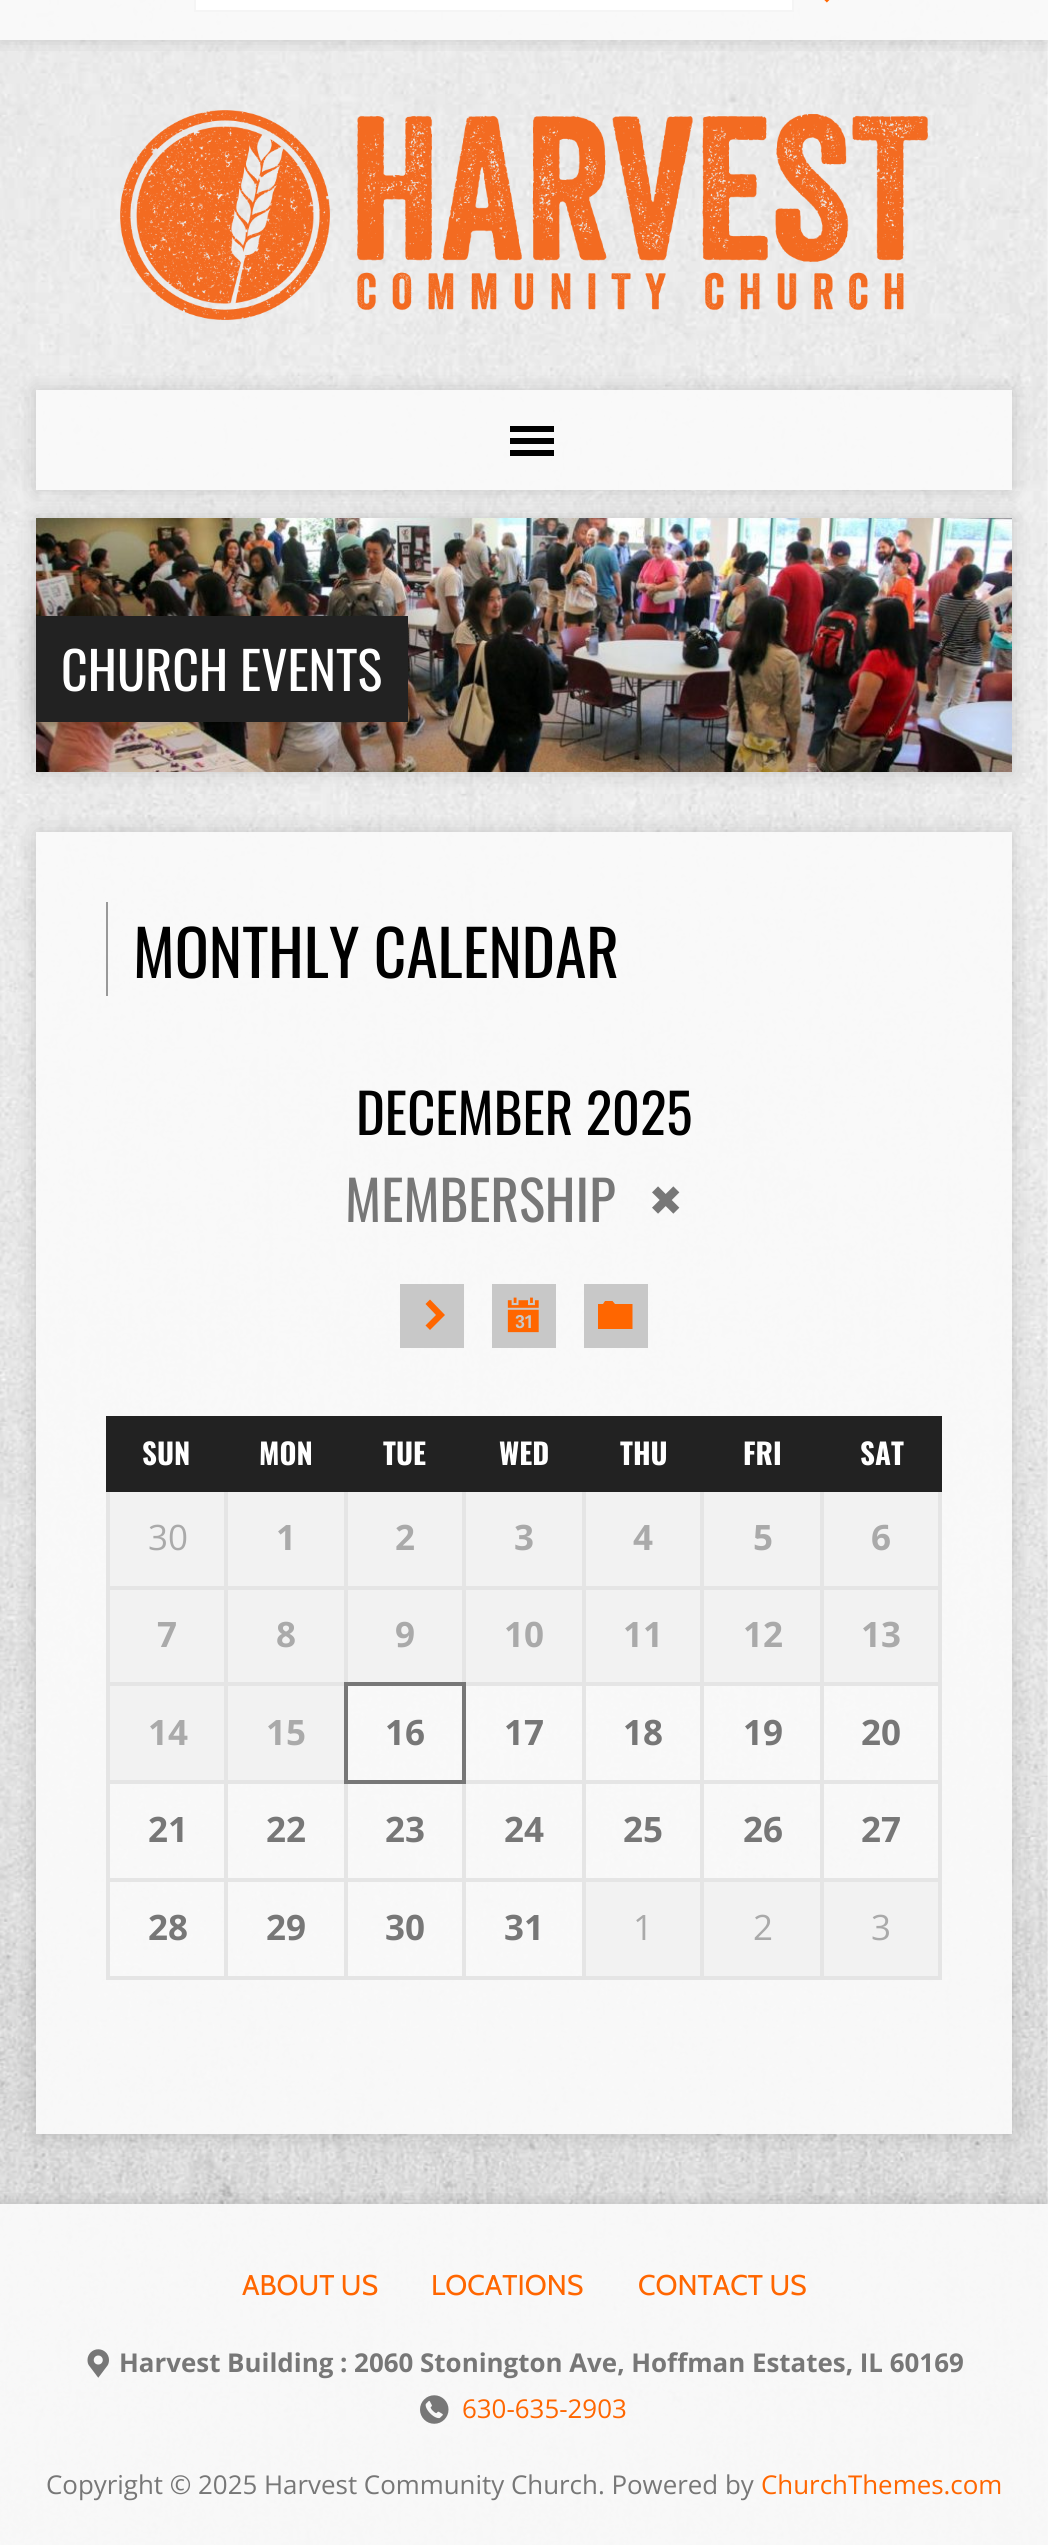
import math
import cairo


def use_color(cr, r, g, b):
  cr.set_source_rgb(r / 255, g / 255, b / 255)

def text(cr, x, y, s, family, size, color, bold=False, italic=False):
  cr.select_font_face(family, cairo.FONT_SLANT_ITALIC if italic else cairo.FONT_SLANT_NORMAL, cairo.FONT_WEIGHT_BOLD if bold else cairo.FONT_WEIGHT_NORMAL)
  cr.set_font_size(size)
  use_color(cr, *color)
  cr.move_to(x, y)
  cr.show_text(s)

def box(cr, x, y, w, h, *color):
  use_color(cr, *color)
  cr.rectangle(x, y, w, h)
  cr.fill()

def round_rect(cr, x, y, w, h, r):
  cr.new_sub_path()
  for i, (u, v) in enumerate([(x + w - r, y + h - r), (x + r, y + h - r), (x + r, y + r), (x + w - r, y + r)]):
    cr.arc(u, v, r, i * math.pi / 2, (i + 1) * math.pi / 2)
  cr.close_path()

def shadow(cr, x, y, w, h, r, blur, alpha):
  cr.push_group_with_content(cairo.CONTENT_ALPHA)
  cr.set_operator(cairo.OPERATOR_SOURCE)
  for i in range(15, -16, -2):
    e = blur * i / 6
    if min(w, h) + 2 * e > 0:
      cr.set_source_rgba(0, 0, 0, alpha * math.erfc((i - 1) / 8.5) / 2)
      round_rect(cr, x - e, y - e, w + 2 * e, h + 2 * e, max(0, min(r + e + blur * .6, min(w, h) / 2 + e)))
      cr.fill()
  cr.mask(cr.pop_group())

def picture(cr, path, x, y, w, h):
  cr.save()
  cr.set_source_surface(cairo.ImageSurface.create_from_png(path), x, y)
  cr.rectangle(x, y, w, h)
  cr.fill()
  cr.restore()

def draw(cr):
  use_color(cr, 255, 255, 255)
  cr.paint()
  picture(cr, "img_01.png", 0, 0, 1048, 2545)
  cr.save()
  cr.rectangle(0, 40, 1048, 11)
  cr.clip()
  use_color(cr, 0, 0, 0)
  shadow(cr, 0, -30, 1048, 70, 0, 10, 0.15)
  cr.restore()
  cr.set_source_rgba(0.98, 0.98, 0.98, 0.94)
  cr.rectangle(0, 0, 1048, 40)
  cr.fill()
  box(cr, 194, 0, 600, 12, 255, 255, 255)
  use_color(cr, 245, 245, 245)
  cr.new_path()
  cr.move_to(794, -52)
  cr.line_to(794, 12)
  cr.line_to(792, 10)
  cr.line_to(792, -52)
  cr.close_path()
  cr.fill()
  cr.set_source_rgba(0.588, 0.588, 0.588, 0.1)
  cr.new_path()
  cr.move_to(794, 12)
  cr.line_to(194, 12)
  cr.line_to(196, 10)
  cr.line_to(792, 10)
  cr.close_path()
  cr.fill()
  cr.new_path()
  cr.move_to(194, 12)
  cr.line_to(194, -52)
  cr.line_to(196, -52)
  cr.line_to(196, 10)
  cr.close_path()
  cr.fill()
  picture(cr, "img_02.png", 824, 0, 6, 3)
  picture(cr, "img_03.png", 120, 110, 808, 210)
  cr.save()
  cr.set_fill_rule(cairo.FILL_RULE_EVEN_ODD)
  cr.new_path()
  cr.move_to(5, 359)
  cr.line_to(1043, 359)
  cr.line_to(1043, 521)
  cr.line_to(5, 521)
  cr.close_path()
  cr.move_to(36, 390)
  cr.line_to(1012, 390)
  cr.line_to(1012, 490)
  cr.line_to(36, 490)
  cr.close_path()
  cr.clip()
  use_color(cr, 0, 0, 0)
  shadow(cr, 36, 390, 976, 100, 0, 10, 0.15)
  cr.restore()
  cr.set_source_rgba(0.98, 0.98, 0.98, 0.94)
  cr.rectangle(36, 390, 976, 100)
  cr.fill()
  box(cr, 510, 426, 44, 6, 0, 0, 0)
  box(cr, 510, 438, 44, 6, 0, 0, 0)
  box(cr, 510, 450, 44, 6, 0, 0, 0)
  use_color(cr, 0, 0, 0)
  shadow(cr, 36, 518, 976, 254, 0, 10, 0.15)
  picture(cr, "img_04.png", 36, 518, 976, 254)
  shadow(cr, 36, 616, 372, 106, 0, 14, 0.15)
  box(cr, 36, 616, 372, 106, 34, 34, 34)
  cr.save()
  cr.set_fill_rule(cairo.FILL_RULE_EVEN_ODD)
  cr.new_path()
  cr.move_to(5, 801)
  cr.line_to(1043, 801)
  cr.line_to(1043, 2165)
  cr.line_to(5, 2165)
  cr.close_path()
  cr.move_to(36, 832)
  cr.line_to(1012, 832)
  cr.line_to(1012, 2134)
  cr.line_to(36, 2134)
  cr.close_path()
  cr.clip()
  use_color(cr, 0, 0, 0)
  shadow(cr, 36, 832, 976, 1302, 0, 10, 0.15)
  cr.restore()
  cr.set_source_rgba(0.98, 0.98, 0.98, 0.94)
  cr.rectangle(36, 832, 976, 1302)
  cr.fill()
  box(cr, 106, 902, 2, 94, 153, 153, 153)
  picture(cr, "img_05.png", 652, 1186, 28, 28)
  box(cr, 400, 1284, 64, 64, 200, 200, 200)
  use_color(cr, 255, 102, 0)
  cr.new_path()
  cr.move_to(445, 1315)
  cr.line_to(430, 1299.5)
  cr.line_to(425.5, 1304)
  cr.line_to(436, 1315)
  cr.line_to(425.5, 1325.5)
  cr.line_to(430, 1330)
  cr.close_path()
  cr.fill()
  box(cr, 492, 1284, 64, 64, 200, 200, 200)
  picture(cr, "img_06.png", 507, 1297, 32, 36)
  box(cr, 584, 1284, 64, 64, 200, 200, 200)
  use_color(cr, 255, 102, 0)
  cr.new_path()
  cr.move_to(605, 1301)
  cr.line_to(603, 1304)
  cr.line_to(598, 1304)
  cr.line_to(598, 1329)
  cr.line_to(632.5, 1329)
  cr.line_to(632.5, 1304)
  cr.line_to(615, 1304)
  cr.line_to(612.5, 1301)
  cr.close_path()
  cr.fill()
  box(cr, 106, 1416, 836, 76, 34, 34, 34)
  box(cr, 110, 1492, 114, 94, 242, 242, 242)
  box(cr, 224, 1492, 2, 96, 229, 229, 229)
  box(cr, 106, 1586, 120, 4, 229, 229, 229)
  box(cr, 106, 1492, 4, 96, 229, 229, 229)
  box(cr, 228, 1492, 116, 94, 242, 242, 242)
  box(cr, 344, 1492, 2, 96, 229, 229, 229)
  box(cr, 226, 1586, 120, 2, 229, 229, 229)
  box(cr, 226, 1492, 2, 96, 229, 229, 229)
  box(cr, 348, 1492, 114, 94, 242, 242, 242)
  box(cr, 462, 1492, 2, 96, 229, 229, 229)
  box(cr, 346, 1586, 118, 2, 229, 229, 229)
  box(cr, 346, 1492, 2, 96, 229, 229, 229)
  box(cr, 466, 1492, 116, 94, 242, 242, 242)
  box(cr, 582, 1492, 2, 96, 229, 229, 229)
  box(cr, 464, 1586, 120, 2, 229, 229, 229)
  box(cr, 464, 1492, 2, 96, 229, 229, 229)
  box(cr, 586, 1492, 114, 94, 242, 242, 242)
  box(cr, 700, 1492, 2, 96, 229, 229, 229)
  box(cr, 584, 1586, 118, 2, 229, 229, 229)
  box(cr, 584, 1492, 2, 96, 229, 229, 229)
  box(cr, 704, 1492, 116, 94, 242, 242, 242)
  box(cr, 820, 1492, 2, 96, 229, 229, 229)
  box(cr, 702, 1586, 120, 2, 229, 229, 229)
  box(cr, 702, 1492, 2, 96, 229, 229, 229)
  box(cr, 824, 1492, 114, 94, 242, 242, 242)
  box(cr, 938, 1492, 4, 96, 229, 229, 229)
  box(cr, 822, 1586, 120, 4, 229, 229, 229)
  box(cr, 822, 1492, 2, 96, 229, 229, 229)
  box(cr, 110, 1590, 114, 92, 242, 242, 242)
  box(cr, 224, 1588, 2, 96, 229, 229, 229)
  box(cr, 106, 1682, 120, 4, 229, 229, 229)
  box(cr, 106, 1588, 4, 96, 229, 229, 229)
  use_color(cr, 242, 242, 242)
  cr.rectangle(227, 1589, 118, 94)
  cr.fill_preserve()
  use_color(cr, 229, 229, 229)
  cr.stroke()
  use_color(cr, 242, 242, 242)
  cr.rectangle(347, 1589, 116, 94)
  cr.fill_preserve()
  use_color(cr, 229, 229, 229)
  cr.stroke()
  use_color(cr, 242, 242, 242)
  cr.rectangle(465, 1589, 118, 94)
  cr.fill_preserve()
  use_color(cr, 229, 229, 229)
  cr.stroke()
  use_color(cr, 242, 242, 242)
  cr.rectangle(585, 1589, 116, 94)
  cr.fill_preserve()
  use_color(cr, 229, 229, 229)
  cr.stroke()
  use_color(cr, 242, 242, 242)
  cr.rectangle(703, 1589, 118, 94)
  cr.fill_preserve()
  use_color(cr, 229, 229, 229)
  cr.stroke()
  box(cr, 824, 1590, 114, 92, 242, 242, 242)
  box(cr, 938, 1588, 4, 96, 229, 229, 229)
  box(cr, 822, 1682, 120, 4, 229, 229, 229)
  box(cr, 822, 1588, 2, 96, 229, 229, 229)
  box(cr, 110, 1686, 114, 94, 242, 242, 242)
  box(cr, 224, 1684, 2, 98, 229, 229, 229)
  box(cr, 106, 1780, 120, 4, 229, 229, 229)
  box(cr, 106, 1684, 4, 98, 229, 229, 229)
  use_color(cr, 242, 242, 242)
  cr.rectangle(227, 1685, 118, 96)
  cr.fill_preserve()
  use_color(cr, 229, 229, 229)
  cr.stroke()
  cr.rectangle(347, 1685, 116, 96)
  use_color(cr, 119, 119, 119)
  cr.stroke()
  cr.rectangle(465, 1685, 118, 96)
  use_color(cr, 229, 229, 229)
  cr.stroke()
  cr.rectangle(227, 1783, 118, 96)
  cr.stroke()
  cr.rectangle(347, 1783, 116, 96)
  cr.stroke()
  cr.rectangle(465, 1783, 118, 96)
  cr.stroke()
  cr.rectangle(345, 1683, 120, 100)
  use_color(cr, 119, 119, 119)
  cr.stroke()
  cr.rectangle(585, 1685, 116, 96)
  use_color(cr, 229, 229, 229)
  cr.stroke()
  cr.rectangle(703, 1685, 118, 96)
  cr.stroke()
  box(cr, 938, 1684, 4, 98, 229, 229, 229)
  box(cr, 822, 1780, 120, 4, 229, 229, 229)
  box(cr, 822, 1684, 2, 98, 229, 229, 229)
  box(cr, 224, 1782, 2, 98, 229, 229, 229)
  box(cr, 106, 1878, 120, 4, 229, 229, 229)
  box(cr, 106, 1782, 4, 98, 229, 229, 229)
  cr.rectangle(585, 1783, 116, 96)
  cr.stroke()
  cr.rectangle(703, 1783, 118, 96)
  cr.stroke()
  box(cr, 938, 1782, 4, 98, 229, 229, 229)
  box(cr, 822, 1878, 120, 4, 229, 229, 229)
  box(cr, 822, 1782, 2, 98, 229, 229, 229)
  box(cr, 224, 1880, 2, 98, 229, 229, 229)
  box(cr, 106, 1976, 120, 2, 229, 229, 229)
  box(cr, 106, 1880, 4, 98, 229, 229, 229)
  cr.rectangle(227, 1881, 118, 96)
  cr.stroke()
  cr.rectangle(347, 1881, 116, 96)
  cr.stroke()
  cr.rectangle(465, 1881, 118, 96)
  cr.stroke()
  use_color(cr, 242, 242, 242)
  cr.rectangle(585, 1881, 116, 96)
  cr.fill_preserve()
  use_color(cr, 229, 229, 229)
  cr.stroke()
  use_color(cr, 242, 242, 242)
  cr.rectangle(703, 1881, 118, 96)
  cr.fill_preserve()
  use_color(cr, 229, 229, 229)
  cr.stroke()
  box(cr, 824, 1882, 114, 94, 242, 242, 242)
  box(cr, 938, 1880, 4, 98, 229, 229, 229)
  box(cr, 822, 1976, 120, 2, 229, 229, 229)
  box(cr, 822, 1880, 2, 98, 229, 229, 229)
  box(cr, 106, 1978, 836, 2, 229, 229, 229)
  cr.save()
  cr.rectangle(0, 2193, 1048, 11)
  cr.clip()
  use_color(cr, 0, 0, 0)
  shadow(cr, 0, 2204, 1048, 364, 0, 10, 0.15)
  cr.restore()
  cr.set_source_rgba(0.98, 0.98, 0.98, 0.94)
  cr.rectangle(0, 2204, 1048, 341)
  cr.fill()
  picture(cr, "img_07.png", 87, 2349, 22, 29)
  picture(cr, "img_08.png", 420, 2395, 29, 29)
  text(cr, 61, 691, "CHURCH EVENTS", "Oswald", 52, (255, 255, 255))
  text(cr, 133, 978, "MONTHLY CALENDAR", "Oswald", 63.25, (0, 0, 0))
  text(cr, 356, 1135, "DECEMBER 2025", "Oswald", 54.75, (0, 0, 0))
  text(cr, 345, 1222, "MEMBERSHIP", "Oswald", 54.75, (119, 119, 119))
  text(cr, 142, 1465, "SUN", "Oswald", 29, (255, 255, 255), bold=True)
  text(cr, 259, 1465, "MON", "Oswald", 29, (255, 255, 255), bold=True)
  text(cr, 383, 1465, "TUE", "Oswald", 29, (255, 255, 255), bold=True)
  text(cr, 499, 1465, "WED", "Oswald", 29, (255, 255, 255), bold=True)
  text(cr, 620, 1465, "THU", "Oswald", 29, (255, 255, 255), bold=True)
  text(cr, 743, 1465, "FRI", "Oswald", 29, (255, 255, 255), bold=True)
  text(cr, 860, 1465, "SAT", "Oswald", 29, (255, 255, 255), bold=True)
  text(cr, 148, 1550, "30", "Open Sans", 35, (170, 170, 170))
  text(cr, 276, 1550, "1", "Open Sans", 35, (170, 170, 170), bold=True)
  text(cr, 395, 1550, "2", "Open Sans", 35, (170, 170, 170), bold=True)
  text(cr, 514, 1550, "3", "Open Sans", 35, (170, 170, 170), bold=True)
  text(cr, 633, 1550, "4", "Open Sans", 35, (170, 170, 170), bold=True)
  text(cr, 753, 1550, "5", "Open Sans", 35, (170, 170, 170), bold=True)
  text(cr, 871, 1550, "6", "Open Sans", 35, (170, 170, 170), bold=True)
  text(cr, 157, 1647, "7", "Open Sans", 35, (170, 170, 170), bold=True)
  text(cr, 276, 1647, "8", "Open Sans", 35, (170, 170, 170), bold=True)
  text(cr, 395, 1647, "9", "Open Sans", 35, (170, 170, 170), bold=True)
  text(cr, 504, 1647, "10", "Open Sans", 35, (170, 170, 170), bold=True)
  text(cr, 623, 1647, "11", "Open Sans", 35, (170, 170, 170), bold=True)
  text(cr, 743, 1647, "12", "Open Sans", 35, (170, 170, 170), bold=True)
  text(cr, 861, 1647, "13", "Open Sans", 35, (170, 170, 170), bold=True)
  text(cr, 148, 1745, "14", "Open Sans", 35, (170, 170, 170), bold=True)
  text(cr, 266, 1745, "15", "Open Sans", 35, (170, 170, 170), bold=True)
  text(cr, 385, 1745, "16", "Open Sans", 35, (119, 119, 119), bold=True)
  text(cr, 504, 1745, "17", "Open Sans", 35, (119, 119, 119), bold=True)
  text(cr, 623, 1745, "18", "Open Sans", 35, (119, 119, 119), bold=True)
  text(cr, 743, 1745, "19", "Open Sans", 35, (119, 119, 119), bold=True)
  text(cr, 861, 1745, "20", "Open Sans", 35, (119, 119, 119), bold=True)
  text(cr, 148, 1842, "21", "Open Sans", 35, (119, 119, 119), bold=True)
  text(cr, 266, 1842, "22", "Open Sans", 35, (119, 119, 119), bold=True)
  text(cr, 385, 1842, "23", "Open Sans", 35, (119, 119, 119), bold=True)
  text(cr, 504, 1842, "24", "Open Sans", 35, (119, 119, 119), bold=True)
  text(cr, 623, 1842, "25", "Open Sans", 35, (119, 119, 119), bold=True)
  text(cr, 743, 1842, "26", "Open Sans", 35, (119, 119, 119), bold=True)
  text(cr, 861, 1842, "27", "Open Sans", 35, (119, 119, 119), bold=True)
  text(cr, 148, 1940, "28", "Open Sans", 35, (119, 119, 119), bold=True)
  text(cr, 266, 1940, "29", "Open Sans", 35, (119, 119, 119), bold=True)
  text(cr, 385, 1940, "30", "Open Sans", 35, (119, 119, 119), bold=True)
  text(cr, 504, 1940, "31", "Open Sans", 35, (119, 119, 119), bold=True)
  text(cr, 633, 1940, "1", "Open Sans", 35, (170, 170, 170))
  text(cr, 753, 1940, "2", "Open Sans", 35, (170, 170, 170))
  text(cr, 871, 1940, "3", "Open Sans", 35, (170, 170, 170))
  text(cr, 242, 2295, "ABOUT US", "Cabin", 28.5, (255, 102, 0))
  text(cr, 431, 2295, "LOCATIONS", "Cabin", 28.5, (255, 102, 0))
  text(cr, 638, 2295, "CONTACT US", "Cabin", 28.5, (255, 102, 0))
  text(cr, 119, 2372, "Harvest Building : 2060 Stonington Ave, Hoffman Estates, IL 60169", "Open Sans", 25.9, (119, 119, 119), bold=True)
  text(cr, 462, 2418, "630-635-2903", "Open Sans", 25.9, (255, 102, 0))
  text(cr, 46, 2494, "Copyright © 2025 Harvest Community Church. Powered by", "Open Sans", 25.9, (119, 119, 119))
  text(cr, 761, 2494, "ChurchThemes.com", "Open Sans", 25.9, (255, 102, 0))


surface = cairo.ImageSurface(cairo.FORMAT_RGB24, 1048, 2545)
cr = cairo.Context(surface)
options = cairo.FontOptions()
options.set_hint_metrics(cairo.HINT_METRICS_OFF)
options.set_hint_style(cairo.HINT_STYLE_NONE)
cr.set_font_options(options)
cr.set_miter_limit(4)
draw(cr)
surface.write_to_png("out.png")
